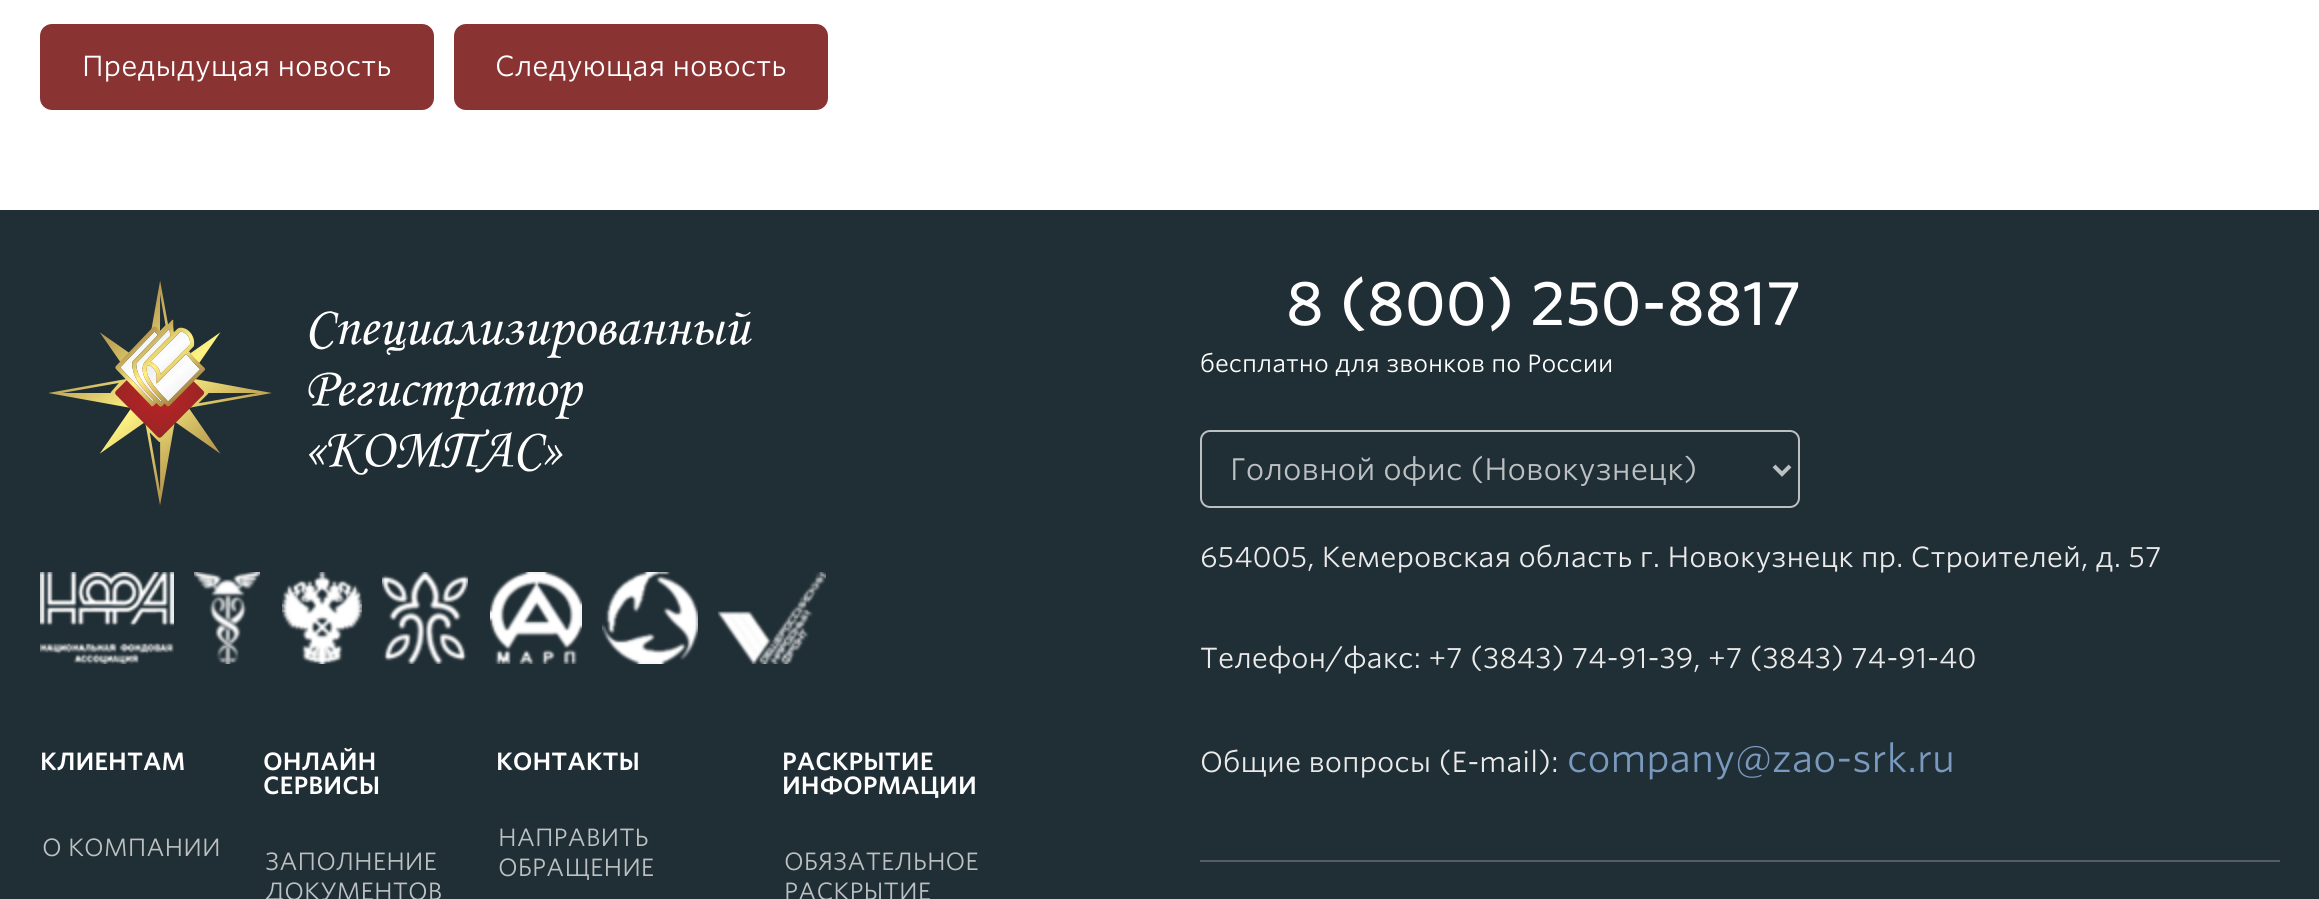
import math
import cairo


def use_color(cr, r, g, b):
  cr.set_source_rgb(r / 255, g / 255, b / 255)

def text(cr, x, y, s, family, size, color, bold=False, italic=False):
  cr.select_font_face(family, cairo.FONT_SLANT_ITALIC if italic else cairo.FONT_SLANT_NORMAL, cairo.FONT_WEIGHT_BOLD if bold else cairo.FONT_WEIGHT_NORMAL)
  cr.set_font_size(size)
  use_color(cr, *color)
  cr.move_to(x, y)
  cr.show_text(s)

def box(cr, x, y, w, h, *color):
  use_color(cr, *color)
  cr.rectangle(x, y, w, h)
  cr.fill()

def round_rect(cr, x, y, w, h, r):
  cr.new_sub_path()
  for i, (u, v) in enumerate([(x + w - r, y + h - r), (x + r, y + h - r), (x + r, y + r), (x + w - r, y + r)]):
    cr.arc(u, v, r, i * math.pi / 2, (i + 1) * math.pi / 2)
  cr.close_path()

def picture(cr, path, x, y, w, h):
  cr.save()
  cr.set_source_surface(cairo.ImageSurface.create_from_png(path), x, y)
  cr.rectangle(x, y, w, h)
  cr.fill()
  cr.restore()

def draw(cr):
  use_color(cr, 255, 255, 255)
  cr.paint()
  use_color(cr, 137, 51, 51)
  round_rect(cr, 41, 25, 392, 84, 11)
  cr.fill_preserve()
  cr.stroke()
  round_rect(cr, 455, 25, 372, 84, 11)
  cr.fill_preserve()
  cr.stroke()
  box(cr, 0, 210, 2319, 689, 32, 46, 53)
  round_rect(cr, 1201, 431, 598, 76, 9)
  use_color(cr, 188, 192, 194)
  cr.stroke()
  cr.new_path()
  cr.move_to(1774, 466)
  cr.line_to(1782, 474)
  cr.line_to(1790, 466)
  cr.set_line_width(4)
  cr.stroke()
  box(cr, 1200, 860, 1080, 2, 83, 93, 98)
  picture(cr, "img_01.png", 48, 280, 704, 226)
  picture(cr, "img_02.png", 40, 572, 134, 92)
  picture(cr, "img_03.png", 194, 572, 66, 92)
  picture(cr, "img_04.png", 282, 572, 80, 92)
  picture(cr, "img_05.png", 382, 572, 86, 92)
  picture(cr, "img_06.png", 490, 572, 92, 92)
  picture(cr, "img_07.png", 602, 572, 96, 92)
  picture(cr, "img_08.png", 718, 572, 108, 92)
  text(cr, 82, 76, "Предыдущая новость", "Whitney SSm", 28, (255, 255, 255))
  text(cr, 495, 76, "Следующая новость", "Whitney SSm", 28, (255, 255, 255))
  text(cr, 1286, 325, "8 (800) 250-8817", "Whitney SSm Medium", 60, (255, 255, 255))
  text(cr, 1200, 372, "бесплатно для звонков по России", "Whitney SSm", 24, (255, 255, 255))
  text(cr, 1230, 480, "Головной офис (Новокузнецк)", "Whitney SSm", 30, (188, 192, 194))
  text(cr, 1200, 567, "654005, Кемеровская область г. Новокузнецк пр. Строителей, д. 57", "Whitney SSm", 28, (234, 234, 234))
  text(cr, 1200, 668, "Телефон/факс: +7 (3843) 74-91-39, +7 (3843) 74-91-40", "Whitney SSm", 28, (234, 234, 234))
  text(cr, 1200, 772, "Общие вопросы (E-mail):", "Whitney SSm", 28, (234, 234, 234))
  text(cr, 1567, 772, "company@zao-srk.ru", "Whitney SSm", 37.25, (121, 153, 190))
  text(cr, 40, 770, "КЛИЕНТАМ", "Whitney SSm SemiBold", 24, (255, 255, 255))
  text(cr, 42, 856, "О КОМПАНИИ", "Whitney SSm", 24, (188, 192, 194))
  text(cr, 263, 770, "ОНЛАЙН", "Whitney SSm SemiBold", 24, (255, 255, 255))
  text(cr, 263, 794, "СЕРВИСЫ", "Whitney SSm SemiBold", 24, (255, 255, 255))
  text(cr, 265, 870, "ЗАПОЛНЕНИЕ", "Whitney SSm", 24, (188, 192, 194))
  text(cr, 265, 900, "ДОКУМЕНТОВ", "Whitney SSm", 24, (188, 192, 194))
  text(cr, 496, 770, "КОНТАКТЫ", "Whitney SSm SemiBold", 24, (255, 255, 255))
  text(cr, 498, 846, "НАПРАВИТЬ", "Whitney SSm", 24, (188, 192, 194))
  text(cr, 498, 876, "ОБРАЩЕНИЕ", "Whitney SSm", 24, (188, 192, 194))
  text(cr, 782, 770, "РАСКРЫТИЕ", "Whitney SSm SemiBold", 24, (255, 255, 255))
  text(cr, 782, 794, "ИНФОРМАЦИИ", "Whitney SSm SemiBold", 24, (255, 255, 255))
  text(cr, 784, 870, "ОБЯЗАТЕЛЬНОЕ", "Whitney SSm", 24, (188, 192, 194))
  text(cr, 784, 900, "РАСКРЫТИЕ", "Whitney SSm", 24, (188, 192, 194))


surface = cairo.ImageSurface(cairo.FORMAT_RGB24, 2319, 899)
cr = cairo.Context(surface)
options = cairo.FontOptions()
options.set_hint_metrics(cairo.HINT_METRICS_OFF)
options.set_hint_style(cairo.HINT_STYLE_NONE)
cr.set_font_options(options)
cr.set_miter_limit(4)
draw(cr)
surface.write_to_png("out.png")
